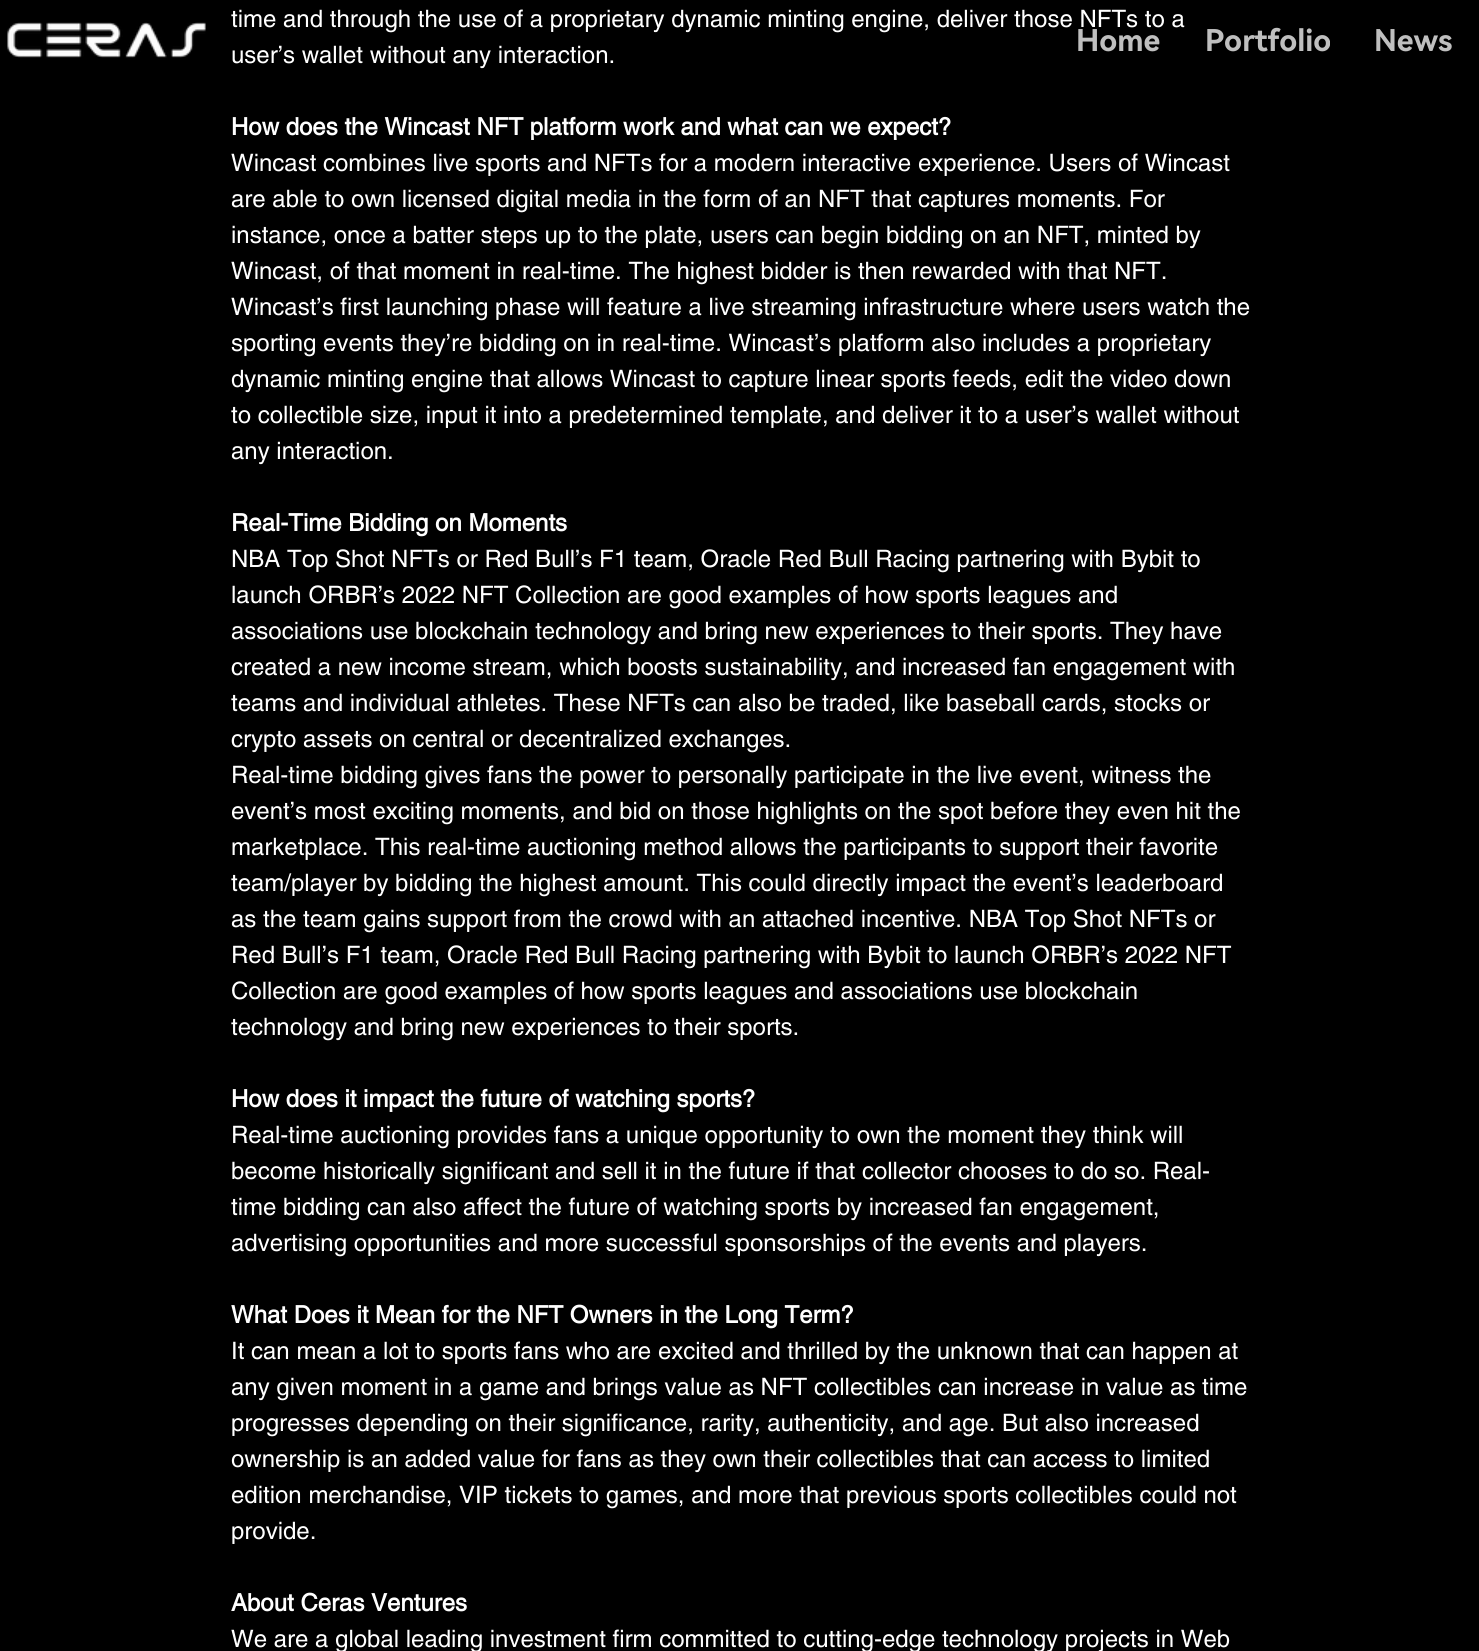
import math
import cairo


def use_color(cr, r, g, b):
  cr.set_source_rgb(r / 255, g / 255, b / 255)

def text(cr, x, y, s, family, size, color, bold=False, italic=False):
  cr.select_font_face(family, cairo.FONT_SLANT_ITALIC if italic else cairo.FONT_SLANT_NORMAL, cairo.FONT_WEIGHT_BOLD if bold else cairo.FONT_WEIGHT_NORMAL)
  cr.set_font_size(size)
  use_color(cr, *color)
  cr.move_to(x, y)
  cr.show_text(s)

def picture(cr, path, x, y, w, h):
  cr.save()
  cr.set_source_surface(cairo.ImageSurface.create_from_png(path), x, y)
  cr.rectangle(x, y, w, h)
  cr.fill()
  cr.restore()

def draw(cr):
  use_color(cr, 0, 0, 0)
  cr.paint()
  picture(cr, "img_01.png", 7, 22, 199, 36)
  text(cr, 231, 27, "time and through the use of a proprietary dynamic minting engine, deliver those NFTs to a", "helvetica", 24, (255, 255, 255))
  text(cr, 231, 63, "user’s wallet without any interaction.", "helvetica", 24, (255, 255, 255))
  text(cr, 231, 135, "How does the Wincast NFT platform work and what can we expect?", "helvetica", 24, (255, 255, 255), bold=True)
  text(cr, 231, 171, "Wincast combines live sports and NFTs for a modern interactive experience. Users of Wincast", "helvetica", 24, (255, 255, 255))
  text(cr, 231, 207, "are able to own licensed digital media in the form of an NFT that captures moments. For", "helvetica", 24, (255, 255, 255))
  text(cr, 231, 243, "instance, once a batter steps up to the plate, users can begin bidding on an NFT, minted by", "helvetica", 24, (255, 255, 255))
  text(cr, 231, 279, "Wincast, of that moment in real-time. The highest bidder is then rewarded with that NFT.", "helvetica", 24, (255, 255, 255))
  text(cr, 231, 315, "Wincast’s first launching phase will feature a live streaming infrastructure where users watch the", "helvetica", 24, (255, 255, 255))
  text(cr, 231, 351, "sporting events they’re bidding on in real-time. Wincast’s platform also includes a proprietary", "helvetica", 24, (255, 255, 255))
  text(cr, 231, 387, "dynamic minting engine that allows Wincast to capture linear sports feeds, edit the video down", "helvetica", 24, (255, 255, 255))
  text(cr, 231, 423, "to collectible size, input it into a predetermined template, and deliver it to a user’s wallet without", "helvetica", 24, (255, 255, 255))
  text(cr, 231, 459, "any interaction.", "helvetica", 24, (255, 255, 255))
  text(cr, 231, 531, "Real-Time Bidding on Moments", "helvetica", 24, (255, 255, 255), bold=True)
  text(cr, 231, 567, "NBA Top Shot NFTs or Red Bull’s F1 team, Oracle Red Bull Racing partnering with Bybit to", "helvetica", 24, (255, 255, 255))
  text(cr, 231, 603, "launch ORBR’s 2022 NFT Collection are good examples of how sports leagues and", "helvetica", 24, (255, 255, 255))
  text(cr, 231, 639, "associations use blockchain technology and bring new experiences to their sports. They have", "helvetica", 24, (255, 255, 255))
  text(cr, 231, 675, "created a new income stream, which boosts sustainability, and increased fan engagement with", "helvetica", 24, (255, 255, 255))
  text(cr, 231, 711, "teams and individual athletes. These NFTs can also be traded, like baseball cards, stocks or", "helvetica", 24, (255, 255, 255))
  text(cr, 231, 747, "crypto assets on central or decentralized exchanges.", "helvetica", 24, (255, 255, 255))
  text(cr, 231, 783, "Real-time bidding gives fans the power to personally participate in the live event, witness the", "helvetica", 24, (255, 255, 255))
  text(cr, 231, 819, "event’s most exciting moments, and bid on those highlights on the spot before they even hit the", "helvetica", 24, (255, 255, 255))
  text(cr, 231, 855, "marketplace. This real-time auctioning method allows the participants to support their favorite", "helvetica", 24, (255, 255, 255))
  text(cr, 231, 891, "team/player by bidding the highest amount. This could directly impact the event’s leaderboard", "helvetica", 24, (255, 255, 255))
  text(cr, 231, 927, "as the team gains support from the crowd with an attached incentive. NBA Top Shot NFTs or", "helvetica", 24, (255, 255, 255))
  text(cr, 231, 963, "Red Bull’s F1 team, Oracle Red Bull Racing partnering with Bybit to launch ORBR’s 2022 NFT", "helvetica", 24, (255, 255, 255))
  text(cr, 231, 999, "Collection are good examples of how sports leagues and associations use blockchain", "helvetica", 24, (255, 255, 255))
  text(cr, 231, 1035, "technology and bring new experiences to their sports.", "helvetica", 24, (255, 255, 255))
  text(cr, 231, 1107, "How does it impact the future of watching sports?", "helvetica", 24, (255, 255, 255), bold=True)
  text(cr, 231, 1143, "Real-time auctioning provides fans a unique opportunity to own the moment they think will", "helvetica", 24, (255, 255, 255))
  text(cr, 231, 1179, "become historically significant and sell it in the future if that collector chooses to do so. Real-", "helvetica", 24, (255, 255, 255))
  text(cr, 231, 1215, "time bidding can also affect the future of watching sports by increased fan engagement,", "helvetica", 24, (255, 255, 255))
  text(cr, 231, 1251, "advertising opportunities and more successful sponsorships of the events and players.", "helvetica", 24, (255, 255, 255))
  text(cr, 231, 1323, "What Does it Mean for the NFT Owners in the Long Term?", "helvetica", 24, (255, 255, 255), bold=True)
  text(cr, 231, 1359, "It can mean a lot to sports fans who are excited and thrilled by the unknown that can happen at", "helvetica", 24, (255, 255, 255))
  text(cr, 231, 1395, "any given moment in a game and brings value as NFT collectibles can increase in value as time", "helvetica", 24, (255, 255, 255))
  text(cr, 231, 1431, "progresses depending on their significance, rarity, authenticity, and age. But also increased", "helvetica", 24, (255, 255, 255))
  text(cr, 231, 1467, "ownership is an added value for fans as they own their collectibles that can access to limited", "helvetica", 24, (255, 255, 255))
  text(cr, 231, 1503, "edition merchandise, VIP tickets to games, and more that previous sports collectibles could not", "helvetica", 24, (255, 255, 255))
  text(cr, 231, 1539, "provide.", "helvetica", 24, (255, 255, 255))
  text(cr, 231, 1611, "About Ceras Ventures", "helvetica", 24, (255, 255, 255), bold=True)
  text(cr, 231, 1647, "We are a global leading investment firm committed to cutting-edge technology projects in Web", "helvetica", 24, (255, 255, 255))
  text(cr, 1076, 51, "Home", "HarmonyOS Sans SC", 30, (191, 191, 191), bold=True)
  text(cr, 1205, 51, "Portfolio", "HarmonyOS Sans SC", 30, (191, 191, 191), bold=True)
  text(cr, 1374, 51, "News", "HarmonyOS Sans SC", 30, (191, 191, 191), bold=True)


surface = cairo.ImageSurface(cairo.FORMAT_RGB24, 1479, 1651)
cr = cairo.Context(surface)
options = cairo.FontOptions()
options.set_hint_metrics(cairo.HINT_METRICS_OFF)
options.set_hint_style(cairo.HINT_STYLE_NONE)
cr.set_font_options(options)
cr.set_miter_limit(4)
draw(cr)
surface.write_to_png("out.png")
